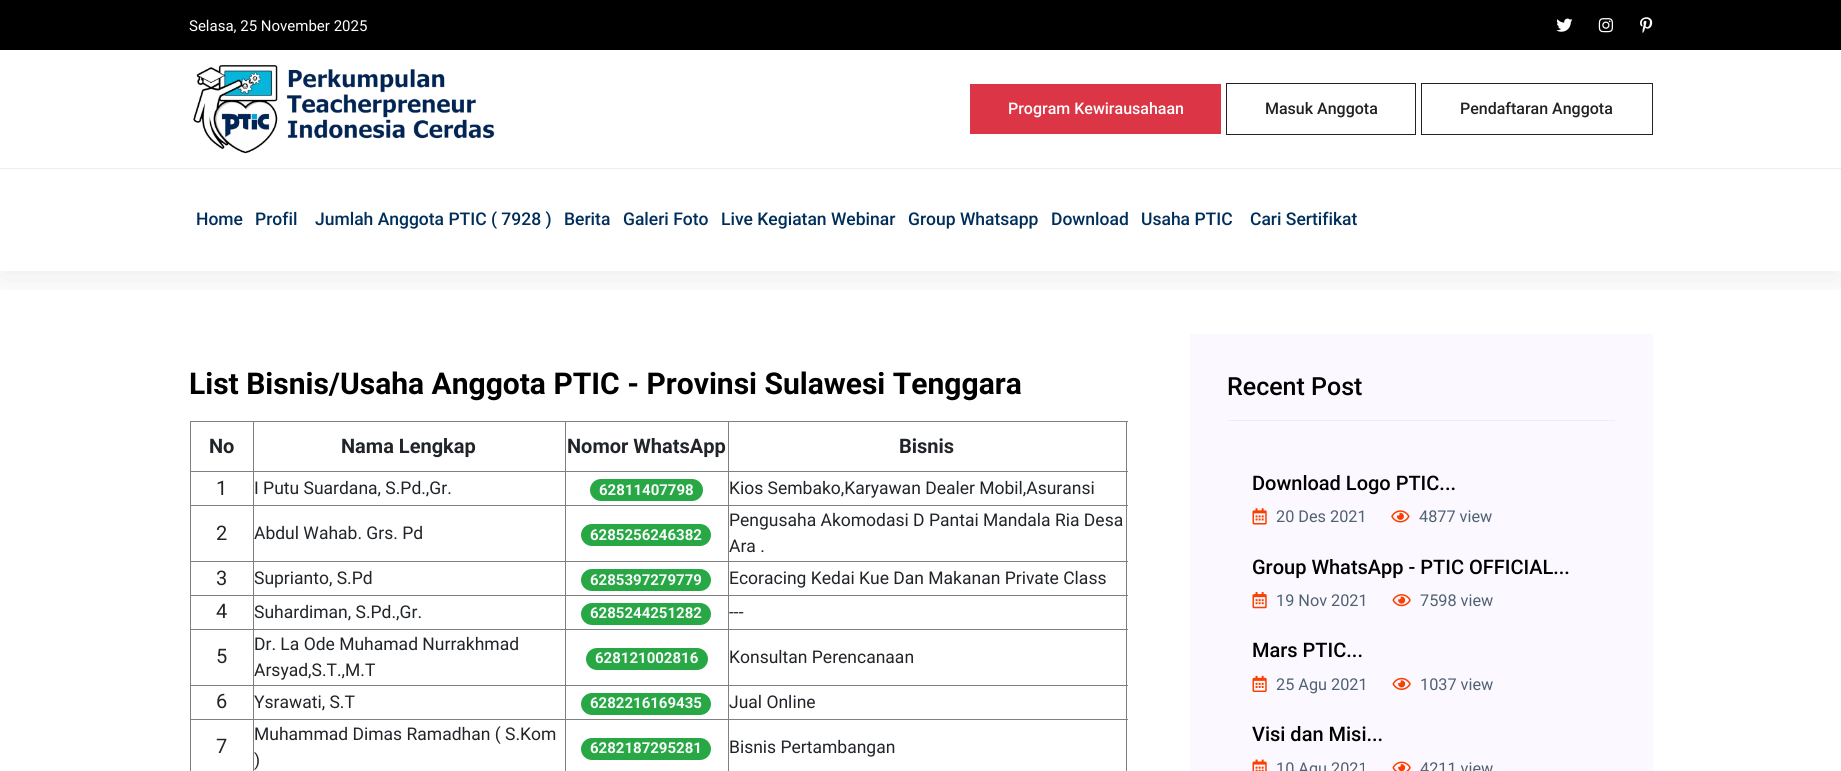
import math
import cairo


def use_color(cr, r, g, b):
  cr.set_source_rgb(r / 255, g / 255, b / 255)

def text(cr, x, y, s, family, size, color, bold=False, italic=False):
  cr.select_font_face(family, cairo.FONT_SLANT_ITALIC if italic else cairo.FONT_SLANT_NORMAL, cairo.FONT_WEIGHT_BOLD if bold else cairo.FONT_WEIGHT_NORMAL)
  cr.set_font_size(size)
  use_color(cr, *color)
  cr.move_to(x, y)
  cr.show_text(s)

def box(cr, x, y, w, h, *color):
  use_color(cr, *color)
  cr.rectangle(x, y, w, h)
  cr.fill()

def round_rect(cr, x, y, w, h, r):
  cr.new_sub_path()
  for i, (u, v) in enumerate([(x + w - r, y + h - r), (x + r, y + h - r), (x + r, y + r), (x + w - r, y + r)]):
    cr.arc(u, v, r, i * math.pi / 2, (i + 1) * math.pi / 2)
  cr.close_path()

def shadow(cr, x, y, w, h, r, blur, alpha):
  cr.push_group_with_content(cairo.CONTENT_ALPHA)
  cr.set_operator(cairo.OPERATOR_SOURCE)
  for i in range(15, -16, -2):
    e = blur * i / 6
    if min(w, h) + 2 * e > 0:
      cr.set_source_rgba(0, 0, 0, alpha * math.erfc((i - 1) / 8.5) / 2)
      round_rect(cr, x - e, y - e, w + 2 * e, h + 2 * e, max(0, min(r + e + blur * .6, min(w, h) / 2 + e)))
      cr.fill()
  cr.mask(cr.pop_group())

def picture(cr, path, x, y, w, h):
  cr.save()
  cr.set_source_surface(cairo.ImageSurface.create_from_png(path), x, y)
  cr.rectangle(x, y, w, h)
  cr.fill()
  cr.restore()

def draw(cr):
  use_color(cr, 255, 255, 255)
  cr.paint()
  box(cr, 0, 0, 1841, 50, 0, 0, 0)
  picture(cr, "img_01.png", 1556, 18, 17, 14)
  picture(cr, "img_02.png", 1598, 18, 15, 15)
  picture(cr, "img_03.png", 1640, 17, 13, 16)
  box(cr, 1190, 334, 463, 437, 251, 249, 255)
  cr.save()
  cr.rectangle(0, 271, 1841, 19)
  cr.clip()
  use_color(cr, 0, 0, 0)
  shadow(cr, 0, 168, 1841, 103, 0, 22.5, 0.1)
  cr.restore()
  box(cr, 0, 139, 1841, 29, 255, 255, 255)
  picture(cr, "img_04.png", 193, 65, 302, 89)
  box(cr, 970, 84, 251, 50, 220, 53, 69)
  cr.rectangle(1226.5, 83.5, 189, 51)
  use_color(cr, 34, 34, 34)
  cr.set_line_width(1)
  cr.stroke()
  cr.rectangle(1421.5, 83.5, 231, 51)
  cr.stroke()
  box(cr, 0, 168, 1841, 1, 238, 238, 238)
  box(cr, 190, 421, 938, 1, 128, 128, 128)
  box(cr, 1126, 421, 1, 350, 128, 128, 128)
  box(cr, 190, 421, 1, 350, 128, 128, 128)
  box(cr, 728, 471, 400, 1, 128, 128, 128)
  box(cr, 728, 505, 400, 1, 128, 128, 128)
  box(cr, 728, 561, 400, 1, 128, 128, 128)
  box(cr, 728, 595, 400, 1, 128, 128, 128)
  box(cr, 728, 629, 400, 1, 128, 128, 128)
  box(cr, 728, 685, 400, 1, 128, 128, 128)
  box(cr, 728, 719, 400, 1, 128, 128, 128)
  box(cr, 728, 719, 1, 52, 128, 128, 128)
  box(cr, 565, 719, 164, 1, 128, 128, 128)
  box(cr, 728, 685, 1, 35, 128, 128, 128)
  box(cr, 565, 685, 164, 1, 128, 128, 128)
  box(cr, 728, 629, 1, 57, 128, 128, 128)
  box(cr, 565, 629, 164, 1, 128, 128, 128)
  box(cr, 728, 595, 1, 35, 128, 128, 128)
  box(cr, 565, 595, 164, 1, 128, 128, 128)
  box(cr, 728, 561, 1, 35, 128, 128, 128)
  box(cr, 565, 561, 164, 1, 128, 128, 128)
  box(cr, 728, 505, 1, 58, 128, 128, 128)
  box(cr, 565, 505, 164, 1, 128, 128, 128)
  box(cr, 728, 471, 1, 35, 128, 128, 128)
  box(cr, 565, 471, 164, 1, 128, 128, 128)
  box(cr, 565, 719, 1, 52, 128, 128, 128)
  box(cr, 253, 719, 313, 1, 128, 128, 128)
  box(cr, 565, 685, 1, 35, 128, 128, 128)
  box(cr, 253, 685, 313, 1, 128, 128, 128)
  box(cr, 565, 629, 1, 57, 128, 128, 128)
  box(cr, 253, 629, 313, 1, 128, 128, 128)
  box(cr, 565, 595, 1, 35, 128, 128, 128)
  box(cr, 253, 595, 313, 1, 128, 128, 128)
  box(cr, 565, 561, 1, 35, 128, 128, 128)
  box(cr, 253, 561, 313, 1, 128, 128, 128)
  box(cr, 565, 505, 1, 58, 128, 128, 128)
  box(cr, 253, 505, 313, 1, 128, 128, 128)
  box(cr, 565, 471, 1, 35, 128, 128, 128)
  box(cr, 253, 471, 313, 1, 128, 128, 128)
  box(cr, 253, 719, 1, 52, 128, 128, 128)
  box(cr, 190, 719, 64, 1, 128, 128, 128)
  box(cr, 253, 685, 1, 35, 128, 128, 128)
  box(cr, 190, 685, 64, 1, 128, 128, 128)
  box(cr, 253, 629, 1, 57, 128, 128, 128)
  box(cr, 190, 629, 64, 1, 128, 128, 128)
  box(cr, 253, 595, 1, 35, 128, 128, 128)
  box(cr, 190, 595, 64, 1, 128, 128, 128)
  box(cr, 253, 561, 1, 35, 128, 128, 128)
  box(cr, 190, 561, 64, 1, 128, 128, 128)
  box(cr, 253, 505, 1, 58, 128, 128, 128)
  box(cr, 190, 505, 64, 1, 128, 128, 128)
  box(cr, 253, 471, 1, 35, 128, 128, 128)
  box(cr, 190, 471, 64, 1, 128, 128, 128)
  box(cr, 253, 421, 1, 52, 128, 128, 128)
  box(cr, 565, 421, 1, 52, 128, 128, 128)
  box(cr, 728, 421, 1, 52, 128, 128, 128)
  use_color(cr, 40, 167, 69)
  round_rect(cr, 590, 479, 113, 22, 11)
  cr.fill()
  round_rect(cr, 581, 524, 130, 22, 11)
  cr.fill()
  round_rect(cr, 581, 569, 130, 22, 11)
  cr.fill()
  round_rect(cr, 581, 603, 130, 22, 11)
  cr.fill()
  round_rect(cr, 586, 648, 122, 22, 11)
  cr.fill()
  round_rect(cr, 581, 693, 130, 22, 11)
  cr.fill()
  round_rect(cr, 581, 738, 130, 22, 11)
  cr.fill()
  box(cr, 1228, 420, 387, 1, 240, 233, 255)
  picture(cr, "img_05.png", 1252, 508, 15, 17)
  picture(cr, "img_06.png", 1391, 510, 19, 13)
  picture(cr, "img_07.png", 1252, 592, 15, 17)
  picture(cr, "img_08.png", 1392, 594, 19, 13)
  picture(cr, "img_09.png", 1252, 675, 15, 17)
  picture(cr, "img_10.png", 1392, 677, 19, 13)
  picture(cr, "img_11.png", 1252, 759, 15, 12)
  picture(cr, "img_12.png", 1392, 761, 19, 10)
  text(cr, 189, 31, "Selasa, 25 November 2025", "Roboto", 15, (255, 255, 255))
  text(cr, 1008, 114, "Program Kewirausahaan", "Roboto Medium", 16, (255, 255, 255))
  text(cr, 1265, 114, "Masuk Anggota", "Roboto Medium", 16, (34, 34, 34))
  text(cr, 1460, 114, "Pendaftaran Anggota", "Roboto Medium", 16, (34, 34, 34))
  text(cr, 196, 225, "Home", "Roboto Medium", 17.5, (0, 46, 91))
  text(cr, 255, 225, "Profil", "Roboto Medium", 17.5, (0, 46, 91))
  text(cr, 315, 225, "Jumlah Anggota PTIC ( 7928 )", "Roboto Medium", 17.5, (0, 46, 91))
  text(cr, 564, 225, "Berita", "Roboto Medium", 17.5, (0, 46, 91))
  text(cr, 623, 225, "Galeri Foto", "Roboto Medium", 17.5, (0, 46, 91))
  text(cr, 721, 225, "Live Kegiatan Webinar", "Roboto Medium", 17.5, (0, 46, 91))
  text(cr, 908, 225, "Group Whatsapp", "Roboto Medium", 17.5, (0, 46, 91))
  text(cr, 1051, 225, "Download", "Roboto Medium", 17.5, (0, 46, 91))
  text(cr, 1141, 225, "Usaha PTIC", "Roboto Medium", 17.5, (0, 46, 91))
  text(cr, 1250, 225, "Cari Sertifikat", "Roboto Medium", 17.5, (0, 46, 91))
  text(cr, 189, 394, "List Bisnis/Usaha Anggota PTIC - Provinsi Sulawesi Tenggara", "Roboto", 30, (0, 0, 0), bold=True)
  text(cr, 209, 453, "No", "Roboto", 20, (33, 37, 41), bold=True)
  text(cr, 341, 453, "Nama Lengkap", "Roboto", 20, (33, 37, 41), bold=True)
  text(cr, 567, 453, "Nomor WhatsApp", "Roboto", 20, (33, 37, 41), bold=True)
  text(cr, 899, 453, "Bisnis", "Roboto", 20, (33, 37, 41), bold=True)
  text(cr, 216, 495, "1", "Roboto", 20, (33, 37, 41))
  text(cr, 254, 494, "I Putu Suardana, S.Pd.,Gr.", "Roboto", 17.5, (33, 37, 41))
  text(cr, 599, 495, "62811407798", "Roboto", 15, (248, 249, 250), bold=True)
  text(cr, 729, 494, "Kios Sembako,Karyawan Dealer Mobil,Asuransi", "Roboto", 17.5, (33, 37, 41))
  text(cr, 216, 540, "2", "Roboto", 20, (33, 37, 41))
  text(cr, 254, 539, "Abdul Wahab. Grs. Pd", "Roboto", 17.5, (33, 37, 41))
  text(cr, 590, 540, "6285256246382", "Roboto", 15, (248, 249, 250), bold=True)
  text(cr, 729, 526, "Pengusaha Akomodasi D Pantai Mandala Ria Desa", "Roboto", 17.5, (33, 37, 41))
  text(cr, 729, 552, "Ara .", "Roboto", 17.5, (33, 37, 41))
  text(cr, 216, 585, "3", "Roboto", 20, (33, 37, 41))
  text(cr, 254, 584, "Suprianto, S.Pd", "Roboto", 17.5, (33, 37, 41))
  text(cr, 590, 585, "6285397279779", "Roboto", 15, (248, 249, 250), bold=True)
  text(cr, 729, 584, "Ecoracing Kedai Kue Dan Makanan Private Class", "Roboto", 17.5, (33, 37, 41))
  text(cr, 216, 618, "4", "Roboto", 20, (33, 37, 41))
  text(cr, 254, 618, "Suhardiman, S.Pd.,Gr.", "Roboto", 17.5, (33, 37, 41))
  text(cr, 590, 618, "6285244251282", "Roboto", 15, (248, 249, 250), bold=True)
  text(cr, 729, 618, "---", "Roboto", 17.5, (33, 37, 41))
  text(cr, 216, 663, "5", "Roboto", 20, (33, 37, 41))
  text(cr, 254, 650, "Dr. La Ode Muhamad Nurrakhmad", "Roboto", 17.5, (33, 37, 41))
  text(cr, 254, 676, "Arsyad,S.T.,M.T", "Roboto", 17.5, (33, 37, 41))
  text(cr, 595, 663, "628121002816", "Roboto", 15, (248, 249, 250), bold=True)
  text(cr, 729, 663, "Konsultan Perencanaan", "Roboto", 17.5, (33, 37, 41))
  text(cr, 216, 708, "6", "Roboto", 20, (33, 37, 41))
  text(cr, 254, 708, "Ysrawati, S.T", "Roboto", 17.5, (33, 37, 41))
  text(cr, 590, 708, "6282216169435", "Roboto", 15, (248, 249, 250), bold=True)
  text(cr, 729, 708, "Jual Online", "Roboto", 17.5, (33, 37, 41))
  text(cr, 216, 753, "7", "Roboto", 20, (33, 37, 41))
  text(cr, 254, 740, "Muhammad Dimas Ramadhan ( S.Kom", "Roboto", 17.5, (33, 37, 41))
  text(cr, 254, 766, ")", "Roboto", 17.5, (33, 37, 41))
  text(cr, 590, 753, "6282187295281", "Roboto", 15, (248, 249, 250), bold=True)
  text(cr, 729, 753, "Bisnis Pertambangan", "Roboto", 17.5, (33, 37, 41))
  text(cr, 1227, 395, "Recent Post", "Roboto Medium", 25, (0, 0, 0))
  text(cr, 1252, 490, "Download Logo PTIC...", "Roboto Medium", 20, (0, 0, 0))
  text(cr, 1276, 522, "20 Des 2021", "Roboto", 16.25, (80, 97, 114))
  text(cr, 1419, 522, "4877 view", "Roboto", 16.25, (80, 97, 114))
  text(cr, 1252, 574, "Group WhatsApp - PTIC OFFICIAL...", "Roboto Medium", 20, (0, 0, 0))
  text(cr, 1276, 606, "19 Nov 2021", "Roboto", 16.25, (80, 97, 114))
  text(cr, 1420, 606, "7598 view", "Roboto", 16.25, (80, 97, 114))
  text(cr, 1252, 657, "Mars PTIC...", "Roboto Medium", 20, (0, 0, 0))
  text(cr, 1276, 690, "25 Agu 2021", "Roboto", 16.25, (80, 97, 114))
  text(cr, 1420, 690, "1037 view", "Roboto", 16.25, (80, 97, 114))
  text(cr, 1252, 741, "Visi dan Misi...", "Roboto Medium", 20, (0, 0, 0))
  text(cr, 1276, 774, "10 Agu 2021", "Roboto", 16.25, (80, 97, 114))
  text(cr, 1420, 774, "4211 view", "Roboto", 16.25, (80, 97, 114))


surface = cairo.ImageSurface(cairo.FORMAT_RGB24, 1841, 771)
cr = cairo.Context(surface)
options = cairo.FontOptions()
options.set_hint_metrics(cairo.HINT_METRICS_OFF)
options.set_hint_style(cairo.HINT_STYLE_NONE)
cr.set_font_options(options)
cr.set_miter_limit(4)
draw(cr)
surface.write_to_png("out.png")
